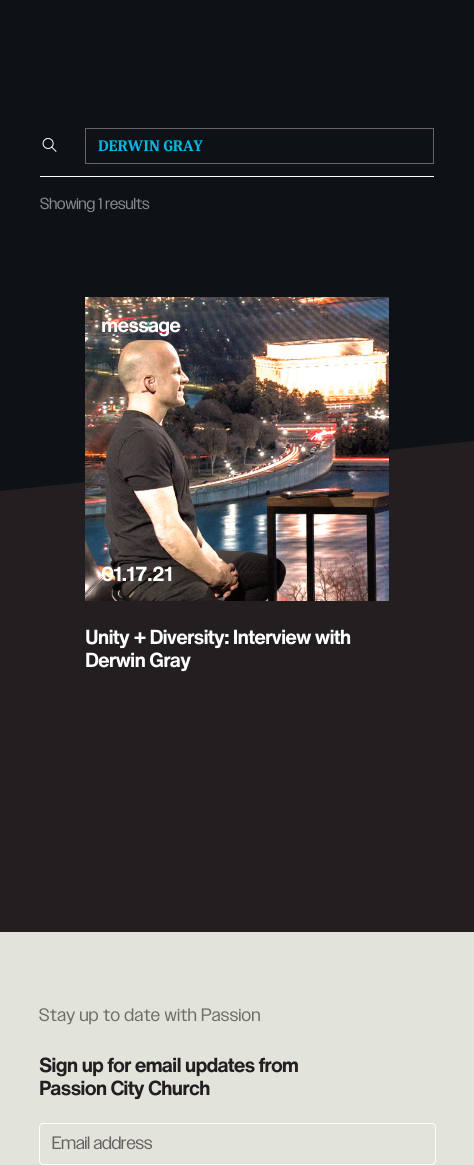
import math
import cairo


def use_color(cr, r, g, b):
  cr.set_source_rgb(r / 255, g / 255, b / 255)

def text(cr, x, y, s, family, size, color, bold=False, italic=False):
  cr.select_font_face(family, cairo.FONT_SLANT_ITALIC if italic else cairo.FONT_SLANT_NORMAL, cairo.FONT_WEIGHT_BOLD if bold else cairo.FONT_WEIGHT_NORMAL)
  cr.set_font_size(size)
  use_color(cr, *color)
  cr.move_to(x, y)
  cr.show_text(s)

def spaced_text(cr, x, y, s, letter, word):
  cr.move_to(x, y)
  for ch in s:
    cr.show_text(ch)
    cr.rel_move_to(letter + word * (ch == ' '), 0)

def box(cr, x, y, w, h, *color):
  use_color(cr, *color)
  cr.rectangle(x, y, w, h)
  cr.fill()

def round_rect(cr, x, y, w, h, r):
  cr.new_sub_path()
  for i, (u, v) in enumerate([(x + w - r, y + h - r), (x + r, y + h - r), (x + r, y + r), (x + w - r, y + r)]):
    cr.arc(u, v, r, i * math.pi / 2, (i + 1) * math.pi / 2)
  cr.close_path()

def picture(cr, path, x, y, w, h):
  cr.save()
  cr.set_source_surface(cairo.ImageSurface.create_from_png(path), x, y)
  cr.rectangle(x, y, w, h)
  cr.fill()
  cr.restore()

def draw(cr):
  use_color(cr, 226, 227, 218)
  cr.paint()
  box(cr, 0, 0, 474, 491, 14, 18, 22)
  box(cr, 40, 176, 394, 1, 255, 255, 255)
  picture(cr, "img_01.png", 42, 138, 15, 14)
  cr.rectangle(85.5, 128.5, 348, 35)
  use_color(cr, 103, 98, 99)
  cr.set_line_width(1)
  cr.stroke()
  cr.save()
  cr.rectangle(0, 0, 474, 932)
  cr.clip()
  use_color(cr, 35, 31, 32)
  cr.new_path()
  cr.move_to(0, 491)
  cr.line_to(474, 441)
  cr.line_to(474, 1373)
  cr.line_to(0, 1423)
  cr.close_path()
  cr.fill()
  cr.restore()
  picture(cr, "img_02.png", 85, 297, 304, 304)
  round_rect(cr, 39.5, 1123.5, 396, 41, 3.5)
  use_color(cr, 255, 255, 255)
  cr.stroke()
  text(cr, 98, 151, "DERWIN GRAY", "Caladea", 16, (0, 183, 227), bold=True)
  text(cr, 40, 209, "Showing 1 results", "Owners", 16, (135, 137, 139))
  cr.select_font_face("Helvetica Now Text", cairo.FONT_SLANT_NORMAL, cairo.FONT_WEIGHT_BOLD)
  cr.set_font_size(20)
  use_color(cr, 255, 255, 255)
  spaced_text(cr, 101, 332, "message", -0.9, 0)
  spaced_text(cr, 101, 581, "01.17.21", -0.9, 0)
  spaced_text(cr, 85, 644, "Unity + Diversity: Interview with", -0.9, 0)
  spaced_text(cr, 85, 667, "Derwin Gray", -0.9, 0)
  cr.select_font_face("Owners")
  cr.set_font_size(18)
  use_color(cr, 111, 109, 106)
  spaced_text(cr, 39, 1021, "Stay up to date with Passion", 0.45, 0)
  cr.select_font_face("Helvetica Now Text", cairo.FONT_SLANT_NORMAL, cairo.FONT_WEIGHT_BOLD)
  cr.set_font_size(20)
  use_color(cr, 35, 31, 32)
  spaced_text(cr, 39, 1072, "Sign up for email updates from", -0.9, 0)
  spaced_text(cr, 39, 1095, "Passion City Church", -0.9, 0)
  text(cr, 52, 1149, "Email address", "Owners", 18, (103, 98, 99))


surface = cairo.ImageSurface(cairo.FORMAT_RGB24, 474, 1165)
cr = cairo.Context(surface)
options = cairo.FontOptions()
options.set_hint_metrics(cairo.HINT_METRICS_OFF)
options.set_hint_style(cairo.HINT_STYLE_NONE)
cr.set_font_options(options)
cr.set_miter_limit(4)
draw(cr)
surface.write_to_png("out.png")
